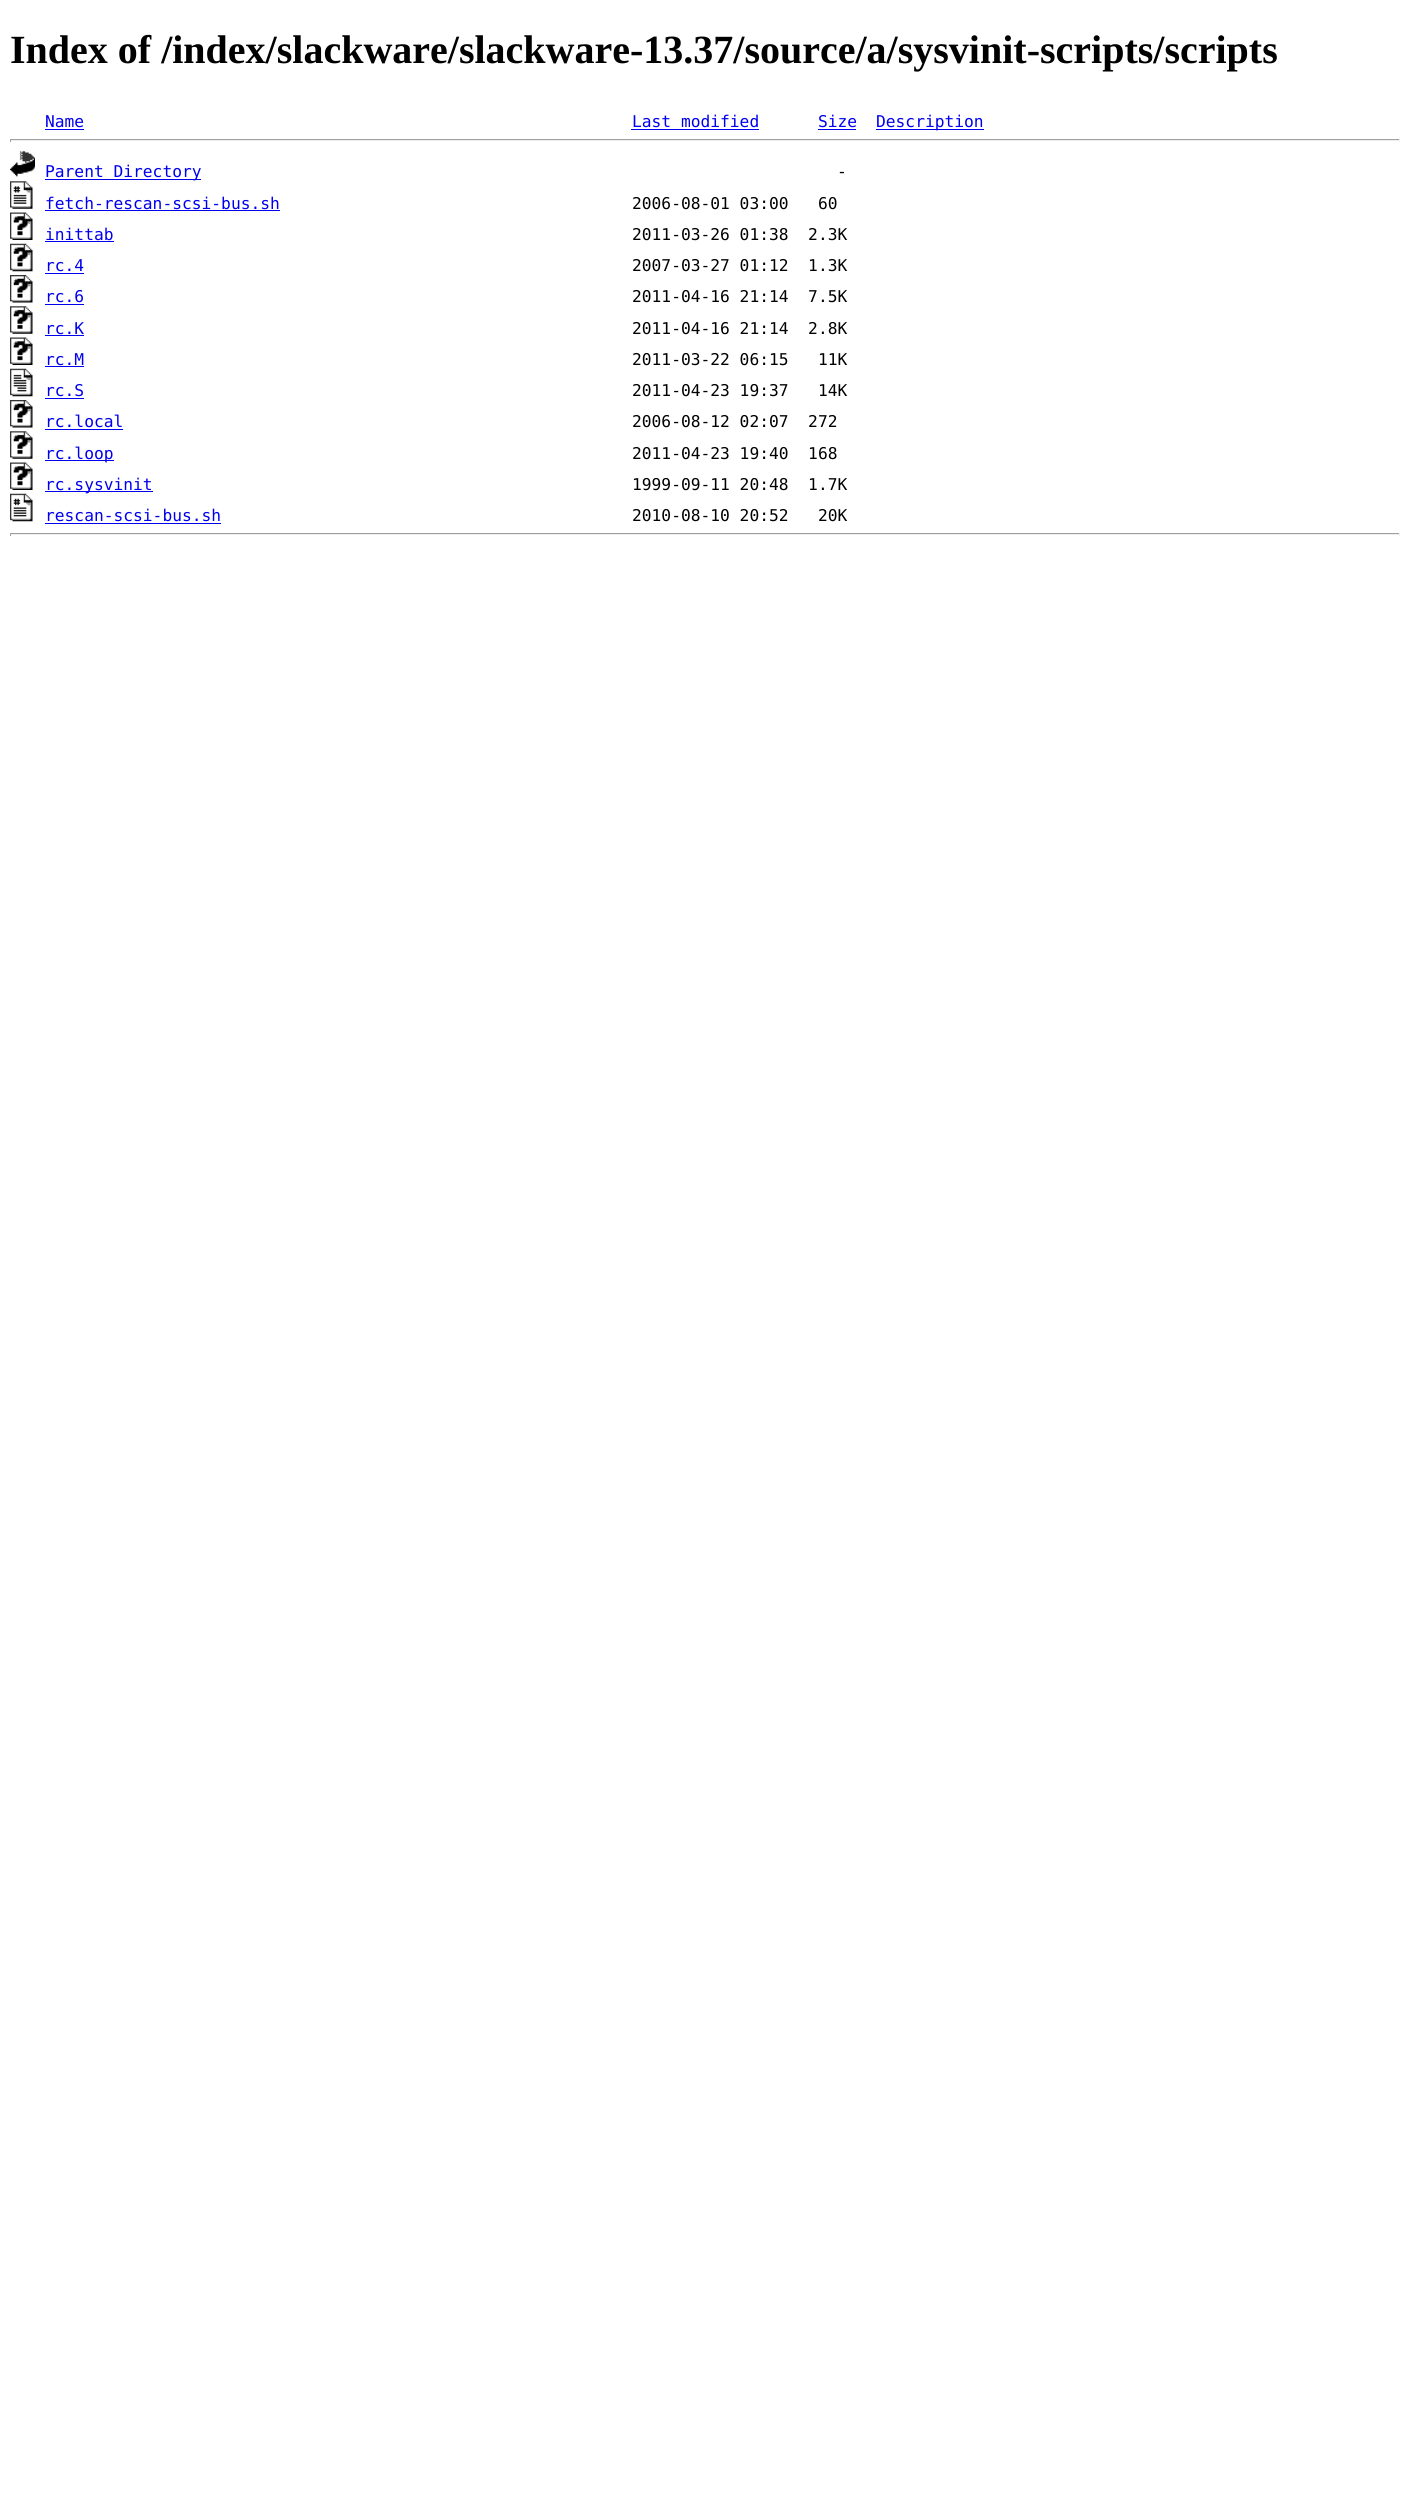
import math
import cairo


def use_color(cr, r, g, b):
  cr.set_source_rgb(r / 255, g / 255, b / 255)

def text(cr, x, y, s, family, size, color, bold=False, italic=False):
  cr.select_font_face(family, cairo.FONT_SLANT_ITALIC if italic else cairo.FONT_SLANT_NORMAL, cairo.FONT_WEIGHT_BOLD if bold else cairo.FONT_WEIGHT_NORMAL)
  cr.set_font_size(size)
  use_color(cr, *color)
  cr.move_to(x, y)
  cr.show_text(s)

def box(cr, x, y, w, h, *color):
  use_color(cr, *color)
  cr.rectangle(x, y, w, h)
  cr.fill()

def picture(cr, path, x, y, w, h):
  cr.save()
  cr.set_source_surface(cairo.ImageSurface.create_from_png(path), x, y)
  cr.rectangle(x, y, w, h)
  cr.fill()
  cr.restore()

def draw(cr):
  use_color(cr, 255, 255, 255)
  cr.paint()
  box(cr, 45, 129, 39, 1, 0, 0, 238)
  box(cr, 631, 129, 128, 1, 0, 0, 238)
  box(cr, 818, 129, 38, 1, 0, 0, 238)
  box(cr, 876, 129, 108, 1, 0, 0, 238)
  box(cr, 10, 139, 1390, 1, 159, 159, 159)
  box(cr, 1399, 139, 1, 3, 238, 238, 238)
  box(cr, 10, 140, 1390, 1, 238, 238, 238)
  box(cr, 10, 139, 1, 3, 159, 159, 159)
  picture(cr, "img_01.png", 10, 151, 25, 26)
  box(cr, 45, 179, 156, 1, 0, 0, 238)
  picture(cr, "img_02.png", 10, 181, 23, 28)
  box(cr, 45, 210, 235, 1, 0, 0, 238)
  picture(cr, "img_03.png", 10, 212, 23, 28)
  box(cr, 45, 241, 69, 1, 0, 0, 238)
  picture(cr, "img_04.png", 10, 243, 23, 29)
  box(cr, 45, 273, 39, 1, 0, 0, 238)
  picture(cr, "img_05.png", 10, 275, 23, 28)
  box(cr, 45, 304, 39, 1, 0, 0, 238)
  picture(cr, "img_06.png", 10, 306, 23, 28)
  box(cr, 45, 335, 39, 1, 0, 0, 238)
  picture(cr, "img_03.png", 10, 337, 23, 28)
  box(cr, 45, 366, 39, 1, 0, 0, 238)
  picture(cr, "img_07.png", 10, 368, 23, 29)
  box(cr, 45, 398, 39, 1, 0, 0, 238)
  picture(cr, "img_08.png", 10, 400, 23, 28)
  box(cr, 45, 429, 78, 1, 0, 0, 238)
  picture(cr, "img_06.png", 10, 431, 23, 28)
  box(cr, 45, 460, 69, 1, 0, 0, 238)
  picture(cr, "img_03.png", 10, 462, 23, 28)
  box(cr, 45, 491, 108, 1, 0, 0, 238)
  picture(cr, "img_09.png", 10, 493, 23, 29)
  box(cr, 45, 523, 176, 1, 0, 0, 238)
  box(cr, 10, 533, 1390, 1, 159, 159, 159)
  box(cr, 1399, 533, 1, 3, 238, 238, 238)
  box(cr, 10, 534, 1390, 1, 238, 238, 238)
  box(cr, 10, 533, 1, 3, 159, 159, 159)
  text(cr, 10, 63, "Index of /index/slackware/slackware-13.37/source/a/sysvinit-scripts/scripts", "Liberation Serif", 40, (0, 0, 0), bold=True)
  text(cr, 45, 127, "Name", "DejaVu Sans Mono", 16.25, (0, 0, 238))
  text(cr, 632, 127, "Last modified", "DejaVu Sans Mono", 16.25, (0, 0, 238))
  text(cr, 818, 127, "Size", "DejaVu Sans Mono", 16.25, (0, 0, 238))
  text(cr, 876, 127, "Description", "DejaVu Sans Mono", 16.25, (0, 0, 238))
  text(cr, 45, 177, "Parent Directory", "DejaVu Sans Mono", 16.25, (0, 0, 238))
  text(cr, 837, 177, "-", "DejaVu Sans Mono", 16.25, (0, 0, 0))
  text(cr, 45, 209, "fetch-rescan-scsi-bus.sh", "DejaVu Sans Mono", 16.25, (0, 0, 238))
  text(cr, 632, 209, "2006-08-01 03:00   60", "DejaVu Sans Mono", 16.25, (0, 0, 0))
  text(cr, 45, 240, "inittab", "DejaVu Sans Mono", 16.25, (0, 0, 238))
  text(cr, 632, 240, "2011-03-26 01:38  2.3K", "DejaVu Sans Mono", 16.25, (0, 0, 0))
  text(cr, 45, 271, "rc.4", "DejaVu Sans Mono", 16.25, (0, 0, 238))
  text(cr, 632, 271, "2007-03-27 01:12  1.3K", "DejaVu Sans Mono", 16.25, (0, 0, 0))
  text(cr, 45, 302, "rc.6", "DejaVu Sans Mono", 16.25, (0, 0, 238))
  text(cr, 632, 302, "2011-04-16 21:14  7.5K", "DejaVu Sans Mono", 16.25, (0, 0, 0))
  text(cr, 45, 334, "rc.K", "DejaVu Sans Mono", 16.25, (0, 0, 238))
  text(cr, 632, 334, "2011-04-16 21:14  2.8K", "DejaVu Sans Mono", 16.25, (0, 0, 0))
  text(cr, 45, 365, "rc.M", "DejaVu Sans Mono", 16.25, (0, 0, 238))
  text(cr, 632, 365, "2011-03-22 06:15   11K", "DejaVu Sans Mono", 16.25, (0, 0, 0))
  text(cr, 45, 396, "rc.S", "DejaVu Sans Mono", 16.25, (0, 0, 238))
  text(cr, 632, 396, "2011-04-23 19:37   14K", "DejaVu Sans Mono", 16.25, (0, 0, 0))
  text(cr, 45, 427, "rc.local", "DejaVu Sans Mono", 16.25, (0, 0, 238))
  text(cr, 632, 427, "2006-08-12 02:07  272", "DejaVu Sans Mono", 16.25, (0, 0, 0))
  text(cr, 45, 459, "rc.loop", "DejaVu Sans Mono", 16.25, (0, 0, 238))
  text(cr, 632, 459, "2011-04-23 19:40  168", "DejaVu Sans Mono", 16.25, (0, 0, 0))
  text(cr, 45, 490, "rc.sysvinit", "DejaVu Sans Mono", 16.25, (0, 0, 238))
  text(cr, 632, 490, "1999-09-11 20:48  1.7K", "DejaVu Sans Mono", 16.25, (0, 0, 0))
  text(cr, 45, 521, "rescan-scsi-bus.sh", "DejaVu Sans Mono", 16.25, (0, 0, 238))
  text(cr, 632, 521, "2010-08-10 20:52   20K", "DejaVu Sans Mono", 16.25, (0, 0, 0))


surface = cairo.ImageSurface(cairo.FORMAT_RGB24, 1410, 2500)
cr = cairo.Context(surface)
options = cairo.FontOptions()
options.set_hint_metrics(cairo.HINT_METRICS_OFF)
options.set_hint_style(cairo.HINT_STYLE_NONE)
cr.set_font_options(options)
cr.set_miter_limit(4)
draw(cr)
surface.write_to_png("out.png")
